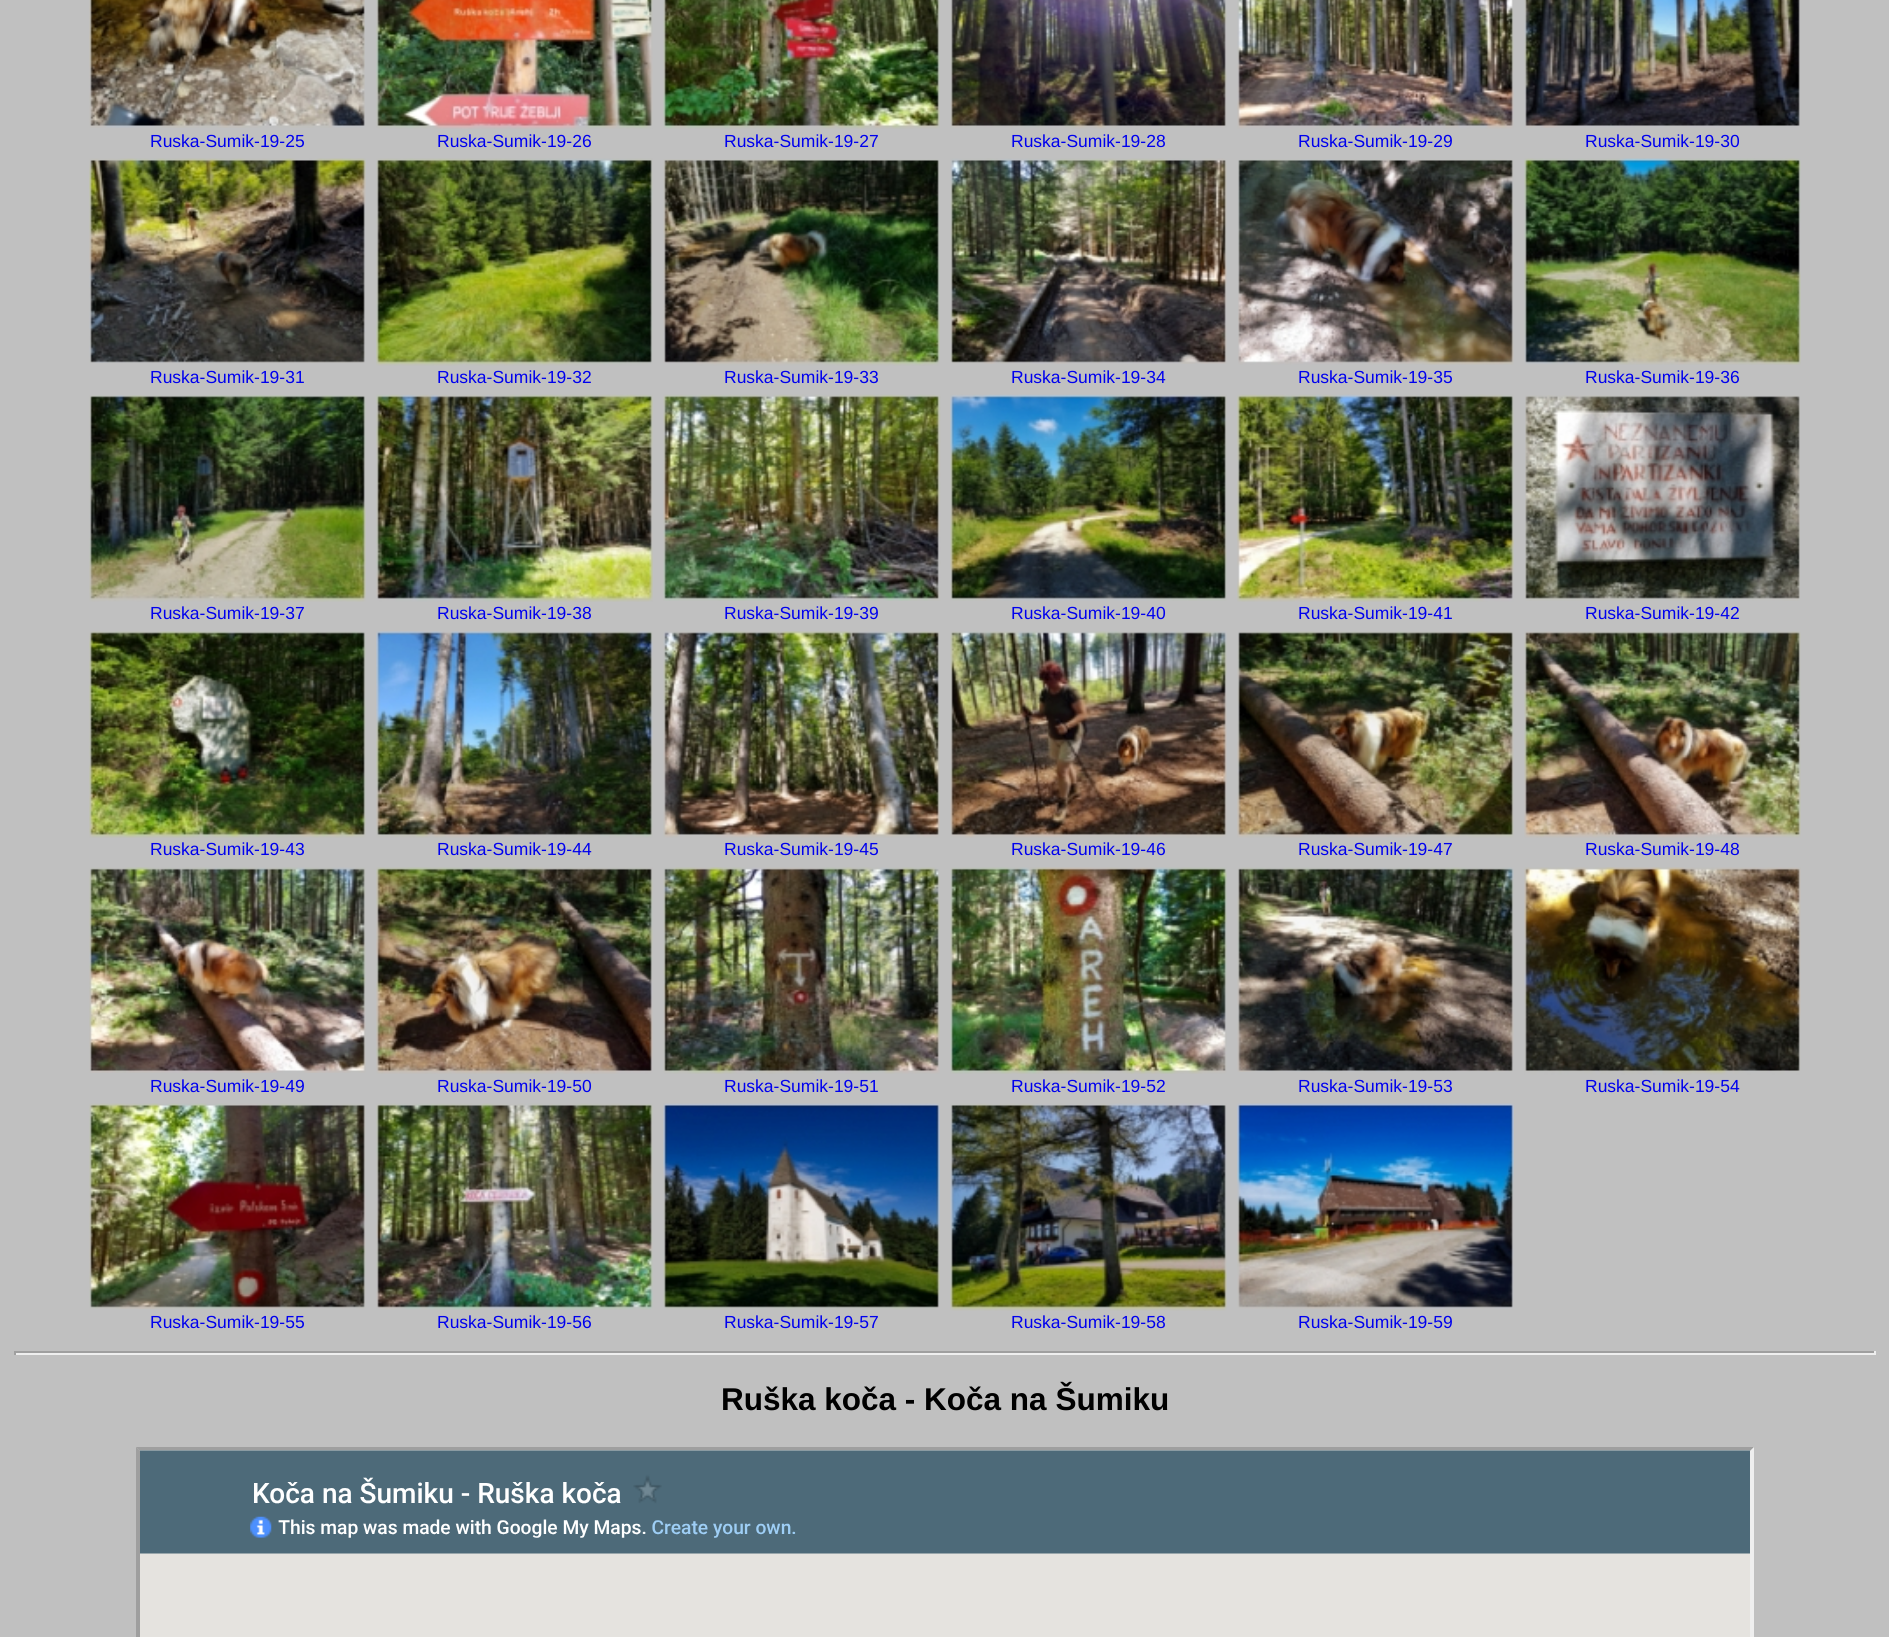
import math
import cairo


def use_color(cr, r, g, b):
  cr.set_source_rgb(r / 255, g / 255, b / 255)

def text(cr, x, y, s, family, size, color, bold=False, italic=False):
  cr.select_font_face(family, cairo.FONT_SLANT_ITALIC if italic else cairo.FONT_SLANT_NORMAL, cairo.FONT_WEIGHT_BOLD if bold else cairo.FONT_WEIGHT_NORMAL)
  cr.set_font_size(size)
  use_color(cr, *color)
  cr.move_to(x, y)
  cr.show_text(s)

def box(cr, x, y, w, h, *color):
  use_color(cr, *color)
  cr.rectangle(x, y, w, h)
  cr.fill()

def picture(cr, path, x, y, w, h):
  cr.save()
  cr.set_source_surface(cairo.ImageSurface.create_from_png(path), x, y)
  cr.rectangle(x, y, w, h)
  cr.fill()
  cr.restore()

def draw(cr):
  use_color(cr, 192, 192, 192)
  cr.paint()
  picture(cr, "img_01.png", 89, 0, 276, 128)
  picture(cr, "img_02.png", 376, 0, 277, 129)
  picture(cr, "img_03.png", 663, 0, 277, 129)
  picture(cr, "img_04.png", 950, 0, 277, 129)
  picture(cr, "img_05.png", 1237, 0, 277, 129)
  picture(cr, "img_06.png", 1524, 0, 276, 128)
  picture(cr, "img_07.png", 89, 158, 277, 205)
  picture(cr, "img_08.png", 376, 158, 277, 208)
  picture(cr, "img_09.png", 663, 159, 277, 207)
  picture(cr, "img_10.png", 950, 158, 277, 206)
  picture(cr, "img_11.png", 1238, 159, 276, 206)
  picture(cr, "img_12.png", 1524, 158, 277, 207)
  picture(cr, "img_13.png", 89, 395, 277, 207)
  picture(cr, "img_14.png", 376, 394, 277, 208)
  picture(cr, "img_15.png", 663, 394, 278, 207)
  picture(cr, "img_16.png", 950, 394, 277, 207)
  picture(cr, "img_17.png", 1237, 394, 277, 208)
  picture(cr, "img_18.png", 1525, 395, 275, 206)
  picture(cr, "img_19.png", 89, 631, 277, 207)
  picture(cr, "img_20.png", 376, 631, 277, 207)
  picture(cr, "img_21.png", 663, 631, 277, 207)
  picture(cr, "img_22.png", 950, 631, 277, 207)
  picture(cr, "img_23.png", 1237, 631, 277, 207)
  picture(cr, "img_24.png", 1524, 631, 277, 207)
  picture(cr, "img_25.png", 89, 867, 277, 206)
  picture(cr, "img_26.png", 376, 867, 277, 207)
  picture(cr, "img_27.png", 663, 867, 277, 207)
  picture(cr, "img_28.png", 950, 867, 277, 207)
  picture(cr, "img_29.png", 1237, 867, 277, 205)
  picture(cr, "img_30.png", 1524, 867, 277, 208)
  picture(cr, "img_31.png", 89, 1103, 277, 206)
  picture(cr, "img_32.png", 376, 1103, 277, 207)
  picture(cr, "img_33.png", 663, 1103, 277, 207)
  picture(cr, "img_34.png", 950, 1103, 277, 208)
  picture(cr, "img_35.png", 1237, 1103, 277, 206)
  box(cr, 14, 1351, 1862, 2, 159, 159, 159)
  box(cr, 1874, 1351, 2, 4, 238, 238, 238)
  box(cr, 14, 1353, 1862, 2, 238, 238, 238)
  box(cr, 14, 1351, 2, 4, 159, 159, 159)
  cr.new_path()
  cr.move_to(136, 1447)
  cr.line_to(1754, 1447)
  cr.line_to(1750, 1451)
  cr.line_to(140, 1451)
  cr.close_path()
  cr.fill()
  cr.new_path()
  cr.move_to(136, 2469)
  cr.line_to(136, 1447)
  cr.line_to(140, 1451)
  cr.line_to(140, 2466)
  cr.close_path()
  cr.fill()
  picture(cr, "img_36.png", 140, 1450, 1610, 187)
  use_color(cr, 238, 238, 238)
  cr.new_path()
  cr.move_to(1754, 1447)
  cr.line_to(1754, 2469)
  cr.line_to(1750, 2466)
  cr.line_to(1750, 1451)
  cr.close_path()
  cr.fill()
  text(cr, 150, 147, "Ruska-Sumik-19-25", "Liberation Sans", 17.5, (0, 0, 238))
  text(cr, 437, 147, "Ruska-Sumik-19-26", "Liberation Sans", 17.5, (0, 0, 238))
  text(cr, 724, 147, "Ruska-Sumik-19-27", "Liberation Sans", 17.5, (0, 0, 238))
  text(cr, 1011, 147, "Ruska-Sumik-19-28", "Liberation Sans", 17.5, (0, 0, 238))
  text(cr, 1298, 147, "Ruska-Sumik-19-29", "Liberation Sans", 17.5, (0, 0, 238))
  text(cr, 1585, 147, "Ruska-Sumik-19-30", "Liberation Sans", 17.5, (0, 0, 238))
  text(cr, 150, 383, "Ruska-Sumik-19-31", "Liberation Sans", 17.5, (0, 0, 238))
  text(cr, 437, 383, "Ruska-Sumik-19-32", "Liberation Sans", 17.5, (0, 0, 238))
  text(cr, 724, 383, "Ruska-Sumik-19-33", "Liberation Sans", 17.5, (0, 0, 238))
  text(cr, 1011, 383, "Ruska-Sumik-19-34", "Liberation Sans", 17.5, (0, 0, 238))
  text(cr, 1298, 383, "Ruska-Sumik-19-35", "Liberation Sans", 17.5, (0, 0, 238))
  text(cr, 1585, 383, "Ruska-Sumik-19-36", "Liberation Sans", 17.5, (0, 0, 238))
  text(cr, 150, 619, "Ruska-Sumik-19-37", "Liberation Sans", 17.5, (0, 0, 238))
  text(cr, 437, 619, "Ruska-Sumik-19-38", "Liberation Sans", 17.5, (0, 0, 238))
  text(cr, 724, 619, "Ruska-Sumik-19-39", "Liberation Sans", 17.5, (0, 0, 238))
  text(cr, 1011, 619, "Ruska-Sumik-19-40", "Liberation Sans", 17.5, (0, 0, 238))
  text(cr, 1298, 619, "Ruska-Sumik-19-41", "Liberation Sans", 17.5, (0, 0, 238))
  text(cr, 1585, 619, "Ruska-Sumik-19-42", "Liberation Sans", 17.5, (0, 0, 238))
  text(cr, 150, 855, "Ruska-Sumik-19-43", "Liberation Sans", 17.5, (0, 0, 238))
  text(cr, 437, 855, "Ruska-Sumik-19-44", "Liberation Sans", 17.5, (0, 0, 238))
  text(cr, 724, 855, "Ruska-Sumik-19-45", "Liberation Sans", 17.5, (0, 0, 238))
  text(cr, 1011, 855, "Ruska-Sumik-19-46", "Liberation Sans", 17.5, (0, 0, 238))
  text(cr, 1298, 855, "Ruska-Sumik-19-47", "Liberation Sans", 17.5, (0, 0, 238))
  text(cr, 1585, 855, "Ruska-Sumik-19-48", "Liberation Sans", 17.5, (0, 0, 238))
  text(cr, 150, 1092, "Ruska-Sumik-19-49", "Liberation Sans", 17.5, (0, 0, 238))
  text(cr, 437, 1092, "Ruska-Sumik-19-50", "Liberation Sans", 17.5, (0, 0, 238))
  text(cr, 724, 1092, "Ruska-Sumik-19-51", "Liberation Sans", 17.5, (0, 0, 238))
  text(cr, 1011, 1092, "Ruska-Sumik-19-52", "Liberation Sans", 17.5, (0, 0, 238))
  text(cr, 1298, 1092, "Ruska-Sumik-19-53", "Liberation Sans", 17.5, (0, 0, 238))
  text(cr, 1585, 1092, "Ruska-Sumik-19-54", "Liberation Sans", 17.5, (0, 0, 238))
  text(cr, 150, 1328, "Ruska-Sumik-19-55", "Liberation Sans", 17.5, (0, 0, 238))
  text(cr, 437, 1328, "Ruska-Sumik-19-56", "Liberation Sans", 17.5, (0, 0, 238))
  text(cr, 724, 1328, "Ruska-Sumik-19-57", "Liberation Sans", 17.5, (0, 0, 238))
  text(cr, 1011, 1328, "Ruska-Sumik-19-58", "Liberation Sans", 17.5, (0, 0, 238))
  text(cr, 1298, 1328, "Ruska-Sumik-19-59", "Liberation Sans", 17.5, (0, 0, 238))
  text(cr, 721, 1410, "Ruška koča - Koča na Šumiku", "Liberation Sans", 31.5, (0, 0, 0), bold=True)


surface = cairo.ImageSurface(cairo.FORMAT_RGB24, 1889, 1637)
cr = cairo.Context(surface)
options = cairo.FontOptions()
options.set_hint_metrics(cairo.HINT_METRICS_OFF)
options.set_hint_style(cairo.HINT_STYLE_NONE)
cr.set_font_options(options)
cr.set_miter_limit(4)
draw(cr)
surface.write_to_png("out.png")
